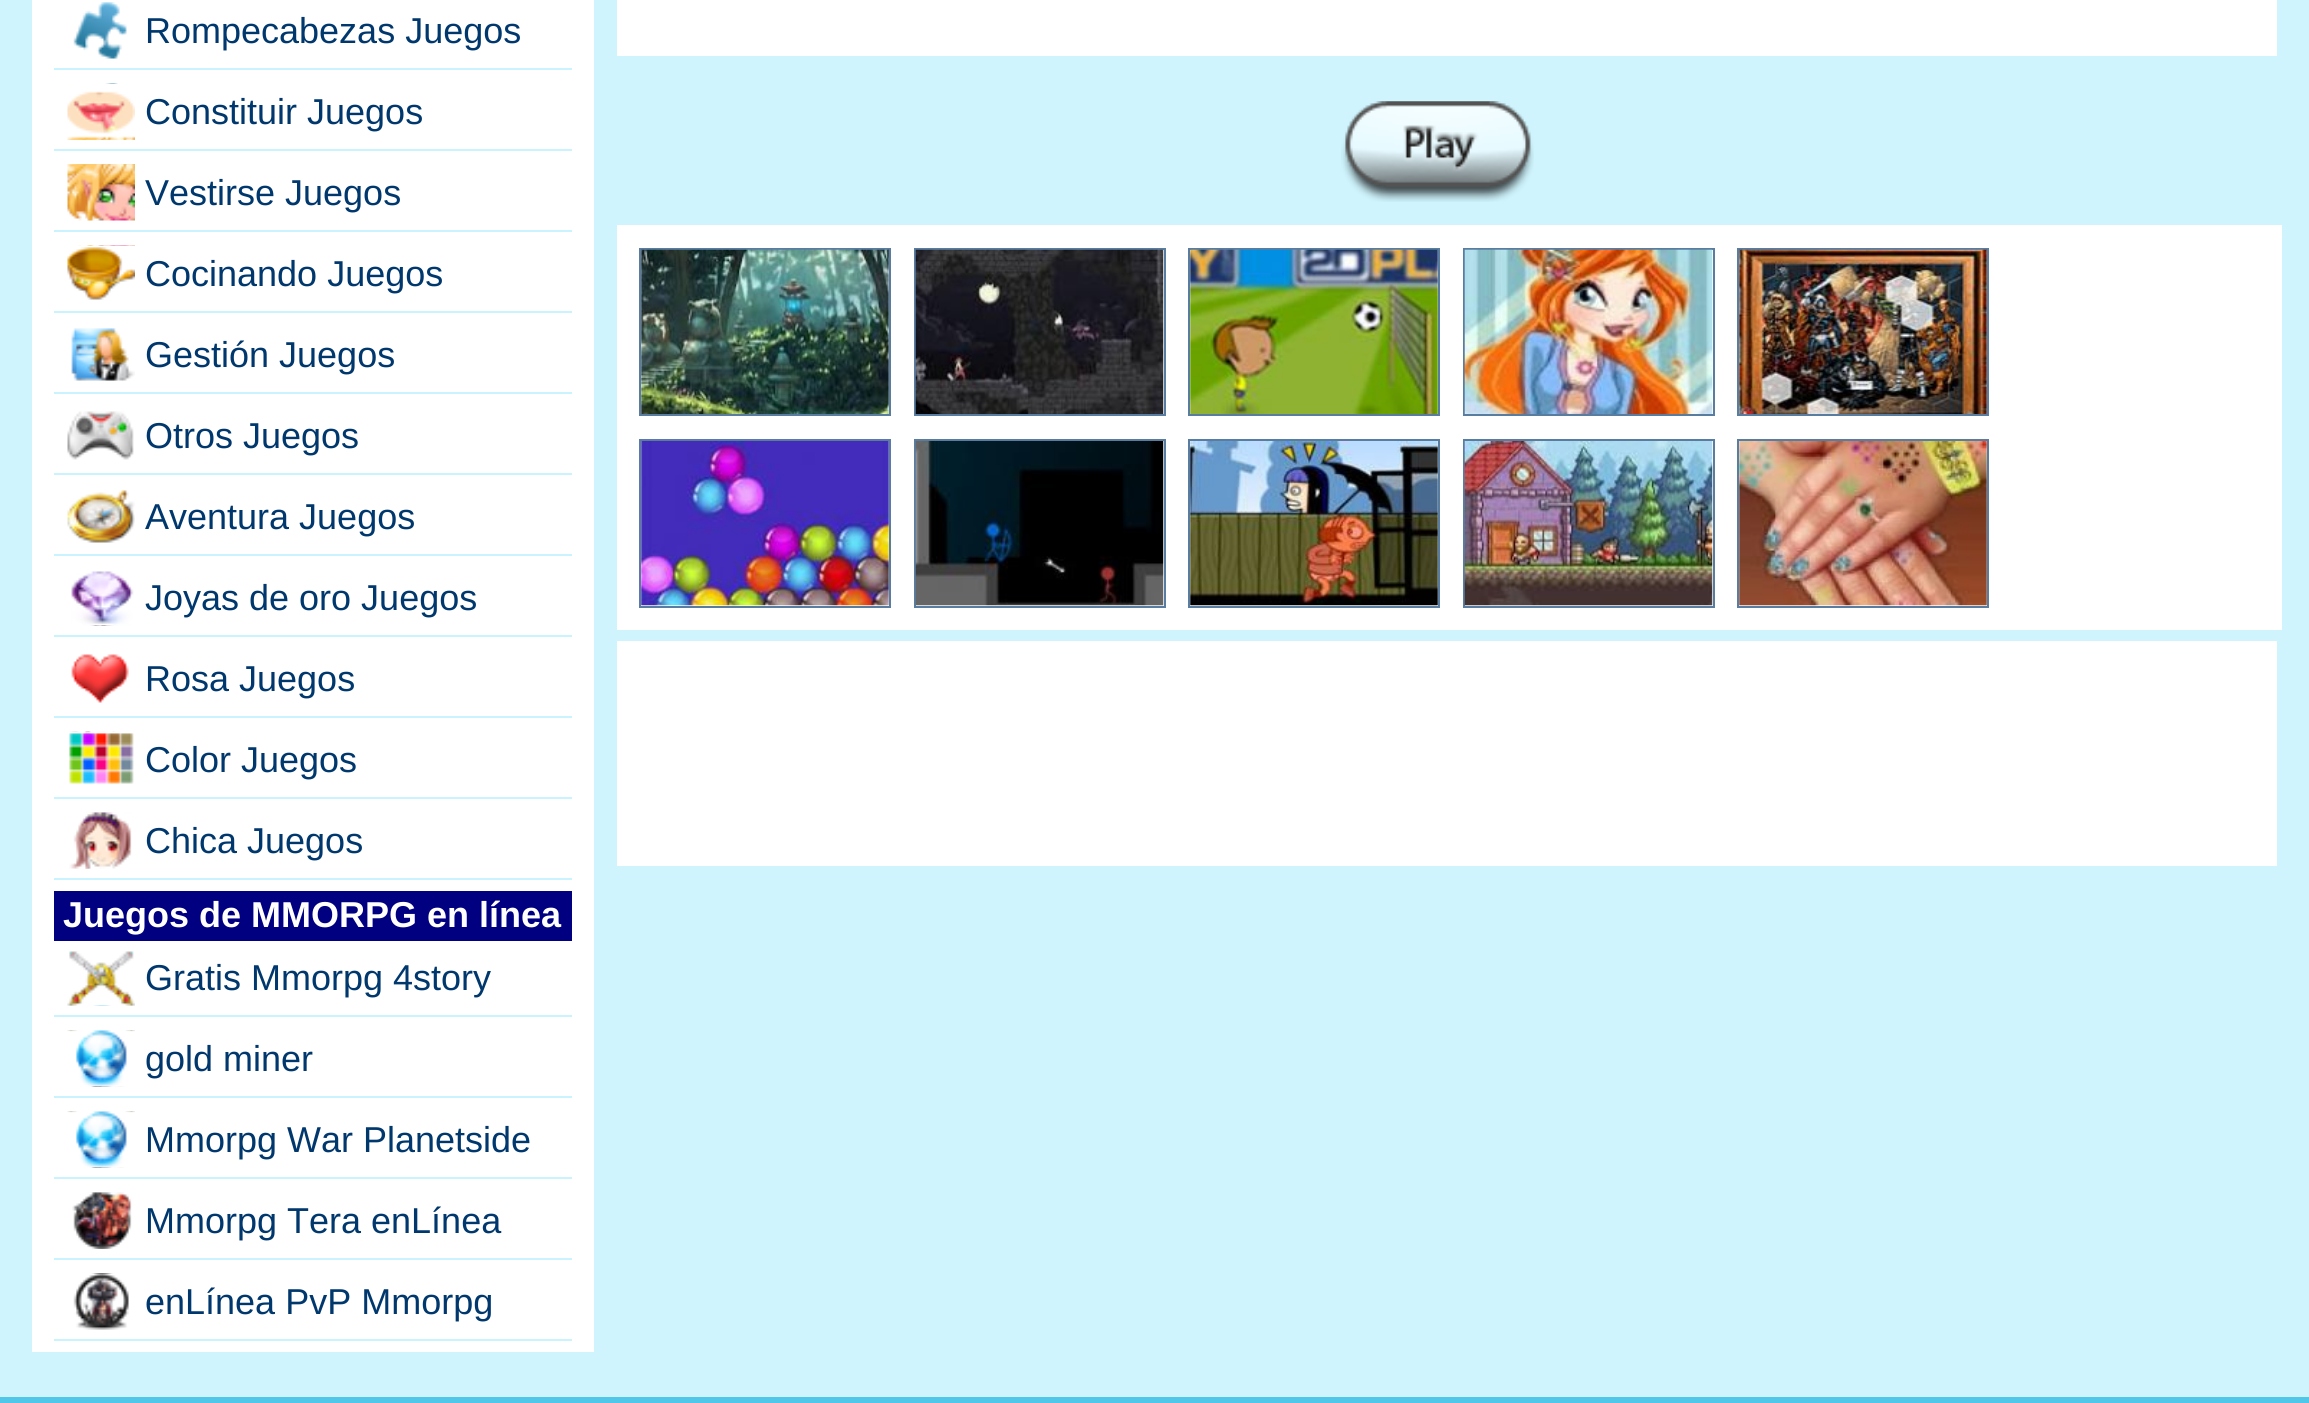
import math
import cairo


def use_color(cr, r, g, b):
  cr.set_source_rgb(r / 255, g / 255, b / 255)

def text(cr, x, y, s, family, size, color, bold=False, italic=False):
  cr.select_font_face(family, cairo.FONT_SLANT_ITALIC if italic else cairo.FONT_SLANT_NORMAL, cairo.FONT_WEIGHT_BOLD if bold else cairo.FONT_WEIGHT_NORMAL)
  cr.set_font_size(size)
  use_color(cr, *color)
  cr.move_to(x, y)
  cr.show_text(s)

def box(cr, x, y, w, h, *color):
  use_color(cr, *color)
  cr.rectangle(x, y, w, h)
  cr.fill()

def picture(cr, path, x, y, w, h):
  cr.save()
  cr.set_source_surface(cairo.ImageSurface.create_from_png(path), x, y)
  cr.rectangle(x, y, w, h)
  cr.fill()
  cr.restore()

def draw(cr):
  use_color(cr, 207, 244, 253)
  cr.paint()
  box(cr, 32, 0, 562, 1352, 255, 255, 255)
  box(cr, 54, 68, 518, 2, 201, 244, 255)
  picture(cr, "img_01.png", 73, 2, 54, 57)
  box(cr, 54, 149, 518, 2, 201, 244, 255)
  picture(cr, "img_02.png", 67, 83, 68, 57)
  box(cr, 54, 230, 518, 2, 201, 244, 255)
  picture(cr, "img_03.png", 67, 164, 68, 57)
  box(cr, 54, 311, 518, 2, 201, 244, 255)
  picture(cr, "img_04.png", 67, 245, 68, 55)
  box(cr, 54, 392, 518, 2, 201, 244, 255)
  picture(cr, "img_05.png", 71, 328, 64, 53)
  box(cr, 54, 473, 518, 2, 201, 244, 255)
  picture(cr, "img_06.png", 67, 411, 67, 49)
  box(cr, 54, 554, 518, 2, 201, 244, 255)
  picture(cr, "img_07.png", 67, 490, 68, 53)
  box(cr, 54, 635, 518, 2, 201, 244, 255)
  picture(cr, "img_08.png", 71, 571, 63, 55)
  box(cr, 54, 716, 518, 2, 201, 244, 255)
  picture(cr, "img_09.png", 71, 654, 58, 49)
  box(cr, 54, 797, 518, 2, 201, 244, 255)
  picture(cr, "img_10.png", 69, 731, 65, 53)
  box(cr, 54, 878, 518, 2, 201, 244, 255)
  picture(cr, "img_11.png", 69, 812, 63, 57)
  box(cr, 54, 891, 518, 50, 0, 0, 128)
  box(cr, 54, 1015, 518, 2, 201, 244, 255)
  picture(cr, "img_12.png", 67, 951, 68, 55)
  box(cr, 54, 1096, 518, 2, 201, 244, 255)
  picture(cr, "img_13.png", 67, 1030, 68, 57)
  box(cr, 54, 1177, 518, 2, 201, 244, 255)
  picture(cr, "img_13.png", 67, 1111, 68, 57)
  box(cr, 54, 1258, 518, 2, 201, 244, 255)
  picture(cr, "img_14.png", 72, 1192, 60, 57)
  box(cr, 54, 1339, 518, 2, 201, 244, 255)
  picture(cr, "img_15.png", 73, 1273, 56, 57)
  box(cr, 617, 0, 1660, 56, 255, 255, 255)
  picture(cr, "img_16.png", 1341, 101, 193, 101)
  box(cr, 617, 225, 1665, 405, 255, 255, 255)
  cr.rectangle(640, 249, 250, 166)
  use_color(cr, 89, 125, 161)
  cr.stroke()
  picture(cr, "img_17.png", 641, 249, 248, 165)
  cr.rectangle(915, 249, 250, 166)
  cr.stroke()
  picture(cr, "img_18.png", 915, 249, 249, 165)
  cr.rectangle(1189, 249, 250, 166)
  cr.stroke()
  picture(cr, "img_19.png", 1190, 249, 248, 165)
  cr.rectangle(1464, 249, 250, 166)
  cr.stroke()
  picture(cr, "img_20.png", 1464, 249, 249, 165)
  cr.rectangle(1738, 249, 250, 166)
  cr.stroke()
  picture(cr, "img_21.png", 1739, 249, 248, 165)
  cr.rectangle(640, 440, 250, 167)
  cr.stroke()
  picture(cr, "img_22.png", 641, 441, 248, 165)
  cr.rectangle(915, 440, 250, 167)
  cr.stroke()
  picture(cr, "img_23.png", 915, 441, 249, 165)
  cr.rectangle(1189, 440, 250, 167)
  cr.stroke()
  picture(cr, "img_24.png", 1190, 441, 248, 165)
  cr.rectangle(1464, 440, 250, 167)
  cr.stroke()
  picture(cr, "img_25.png", 1464, 441, 249, 165)
  cr.rectangle(1738, 440, 250, 167)
  cr.stroke()
  picture(cr, "img_26.png", 1739, 441, 248, 165)
  box(cr, 617, 641, 1660, 225, 255, 255, 255)
  box(cr, 0, 1397, 2309, 6, 80, 198, 233)
  text(cr, 145, 43, "Rompecabezas Juegos", "Liberation Sans", 36, (0, 56, 110))
  text(cr, 145, 124, "Constituir Juegos", "Liberation Sans", 36, (0, 56, 110))
  text(cr, 145, 205, "Vestirse Juegos", "Liberation Sans", 36, (0, 56, 110))
  text(cr, 145, 286, "Cocinando Juegos", "Liberation Sans", 36, (0, 56, 110))
  text(cr, 145, 367, "Gestión Juegos", "Liberation Sans", 36, (0, 56, 110))
  text(cr, 145, 448, "Otros Juegos", "Liberation Sans", 36, (0, 56, 110))
  text(cr, 145, 529, "Aventura Juegos", "Liberation Sans", 36, (0, 56, 110))
  text(cr, 145, 610, "Joyas de oro Juegos", "Liberation Sans", 36, (0, 56, 110))
  text(cr, 145, 691, "Rosa Juegos", "Liberation Sans", 36, (0, 56, 110))
  text(cr, 145, 772, "Color Juegos", "Liberation Sans", 36, (0, 56, 110))
  text(cr, 145, 853, "Chica Juegos", "Liberation Sans", 36, (0, 56, 110))
  text(cr, 63, 927, "Juegos de MMORPG en línea", "Liberation Sans", 36, (255, 255, 255), bold=True)
  text(cr, 145, 990, "Gratis Mmorpg 4story", "Liberation Sans", 36, (0, 56, 110))
  text(cr, 145, 1071, "gold miner", "Liberation Sans", 36, (0, 56, 110))
  text(cr, 145, 1152, "Mmorpg War Planetside", "Liberation Sans", 36, (0, 56, 110))
  text(cr, 145, 1233, "Mmorpg Tera enLínea", "Liberation Sans", 36, (0, 56, 110))
  text(cr, 145, 1314, "enLínea PvP Mmorpg", "Liberation Sans", 36, (0, 56, 110))


surface = cairo.ImageSurface(cairo.FORMAT_RGB24, 2309, 1403)
cr = cairo.Context(surface)
options = cairo.FontOptions()
options.set_hint_metrics(cairo.HINT_METRICS_OFF)
options.set_hint_style(cairo.HINT_STYLE_NONE)
cr.set_font_options(options)
cr.set_miter_limit(4)
draw(cr)
surface.write_to_png("out.png")
